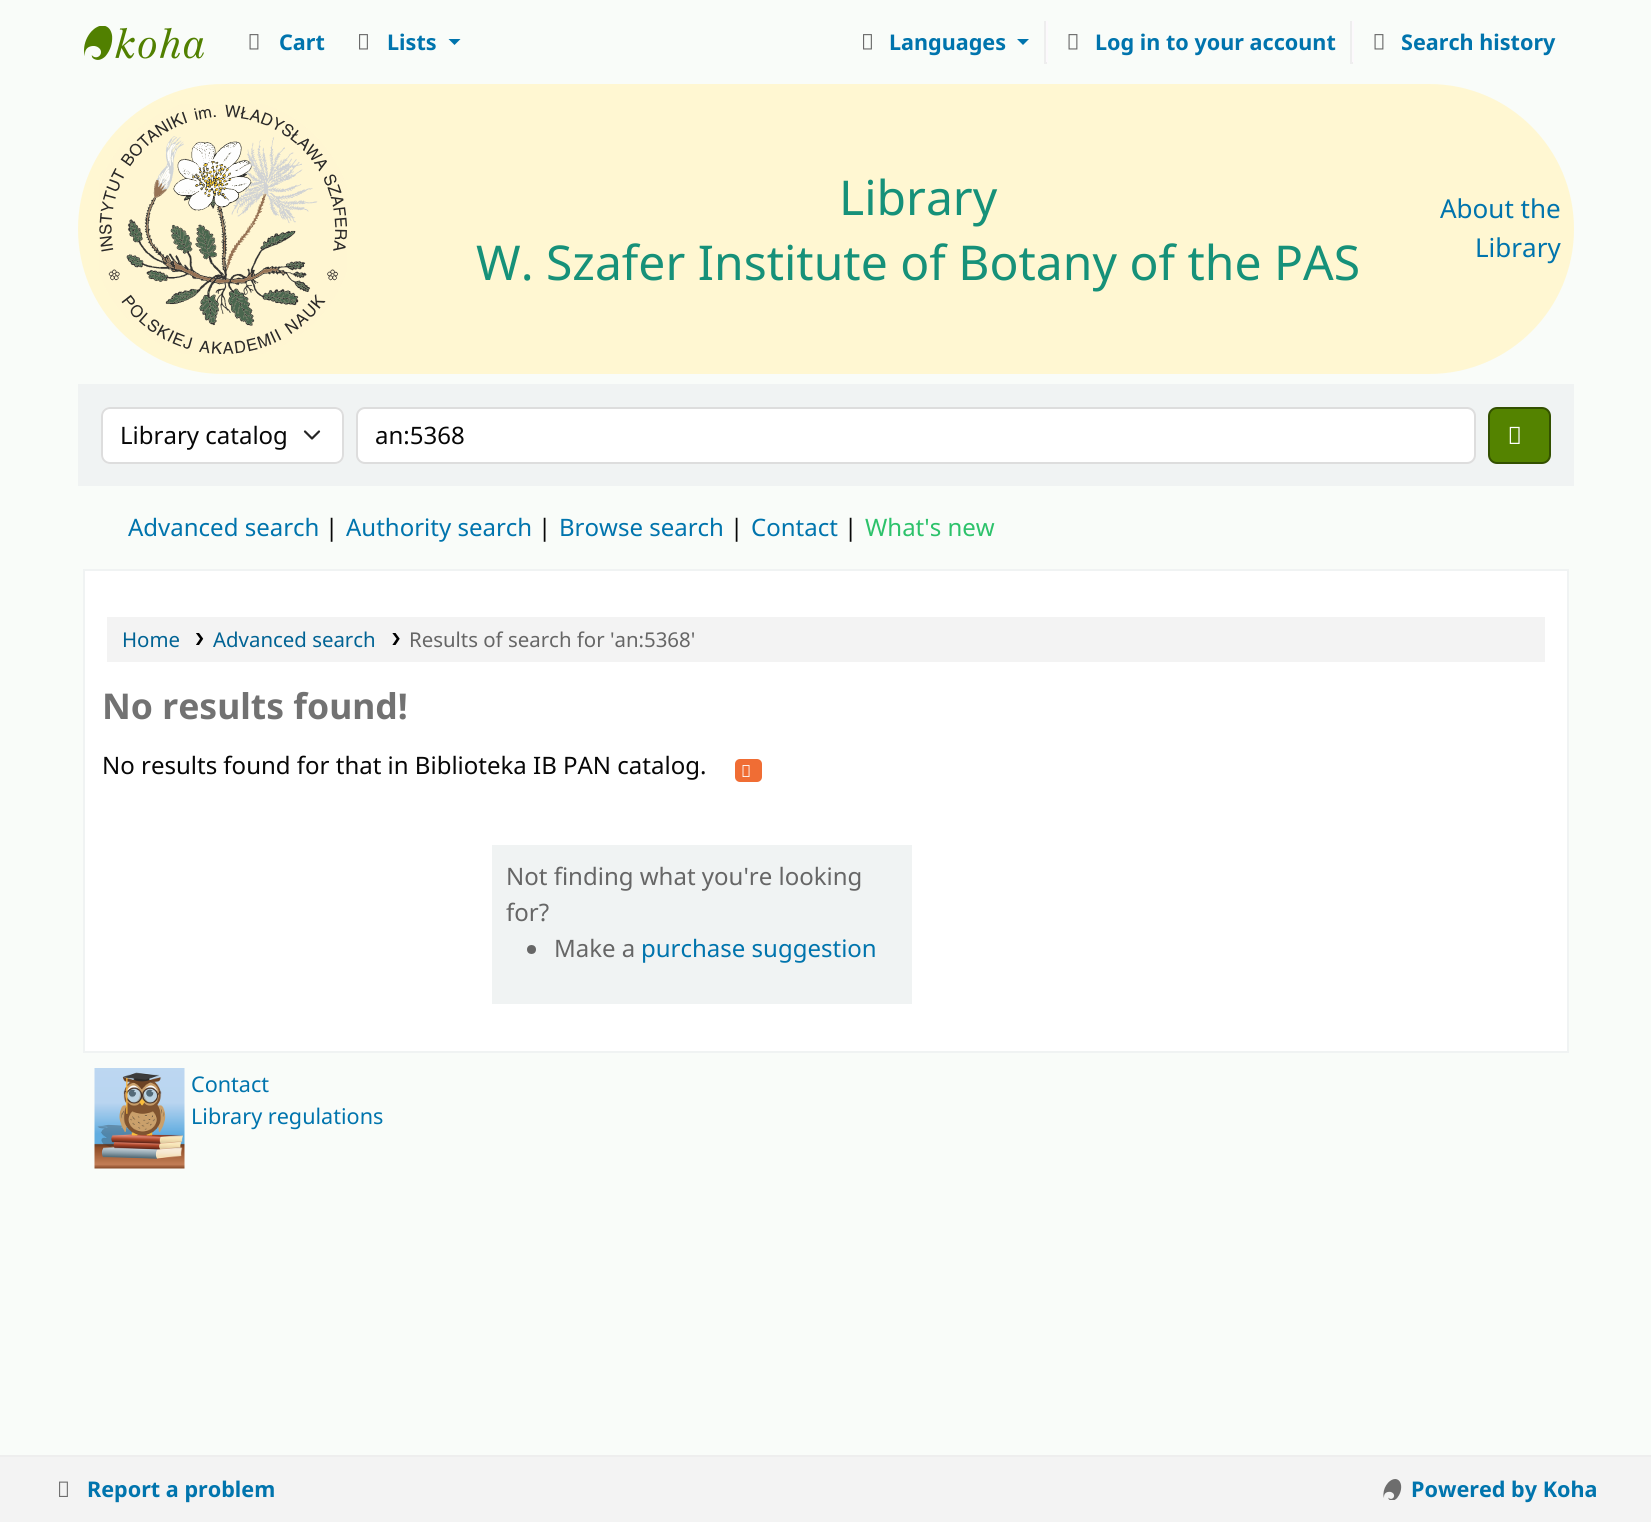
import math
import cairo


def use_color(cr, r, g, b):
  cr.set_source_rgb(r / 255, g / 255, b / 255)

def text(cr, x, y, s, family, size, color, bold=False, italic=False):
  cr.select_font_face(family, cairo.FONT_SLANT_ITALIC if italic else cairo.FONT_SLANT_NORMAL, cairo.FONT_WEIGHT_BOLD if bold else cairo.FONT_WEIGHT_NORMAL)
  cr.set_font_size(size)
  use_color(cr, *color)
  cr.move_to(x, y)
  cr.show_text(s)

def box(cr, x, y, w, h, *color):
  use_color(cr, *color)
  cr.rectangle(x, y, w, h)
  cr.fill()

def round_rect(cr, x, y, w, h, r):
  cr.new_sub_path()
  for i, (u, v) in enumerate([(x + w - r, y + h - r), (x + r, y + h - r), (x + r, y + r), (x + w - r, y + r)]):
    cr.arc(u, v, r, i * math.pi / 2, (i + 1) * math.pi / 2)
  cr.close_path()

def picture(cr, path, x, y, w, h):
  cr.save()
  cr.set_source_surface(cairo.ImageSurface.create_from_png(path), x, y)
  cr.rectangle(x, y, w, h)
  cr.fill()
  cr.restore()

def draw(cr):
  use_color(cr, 249, 252, 249)
  cr.paint()
  picture(cr, "img_01.png", 84, 26, 120, 34)
  picture(cr, "img_02.png", 249, 34, 10, 16)
  picture(cr, "img_03.png", 359, 34, 9, 16)
  use_color(cr, 0, 116, 173)
  cr.new_path()
  cr.move_to(448.5, 39)
  cr.line_to(460.5, 39)
  cr.line_to(454.5, 45)
  cr.close_path()
  cr.fill()
  picture(cr, "img_03.png", 863, 34, 9, 16)
  cr.new_path()
  cr.move_to(1017, 39)
  cr.line_to(1029, 39)
  cr.line_to(1023, 45)
  cr.close_path()
  cr.fill()
  box(cr, 1046, 21, 2, 42, 252, 249, 252)
  box(cr, 1044, 62, 3, 2, 238, 238, 238)
  box(cr, 1044, 21, 2, 42, 238, 238, 238)
  picture(cr, "img_02.png", 1068, 34, 10, 16)
  box(cr, 1352, 21, 2, 42, 252, 249, 252)
  box(cr, 1350, 62, 3, 2, 238, 238, 238)
  box(cr, 1350, 21, 2, 42, 238, 238, 238)
  picture(cr, "img_02.png", 1374, 34, 10, 16)
  use_color(cr, 255, 247, 210)
  round_rect(cr, 78, 84, 1496, 290, 145)
  cr.fill()
  picture(cr, "img_04.png", 99, 104, 248, 250)
  box(cr, 78, 384, 1496, 102, 240, 243, 243)
  use_color(cr, 255, 255, 255)
  round_rect(cr, 101, 407, 243, 57, 9)
  cr.fill()
  cr.new_path()
  cr.move_to(305, 431.5)
  cr.line_to(312, 438.5)
  cr.line_to(319, 431.5)
  use_color(cr, 37, 37, 37)
  cr.set_line_width(2.2)
  cr.set_line_cap(cairo.LINE_CAP_ROUND)
  cr.set_line_join(cairo.LINE_JOIN_ROUND)
  cr.stroke()
  round_rect(cr, 102, 408, 241, 55, 8)
  use_color(cr, 221, 221, 221)
  cr.set_line_width(2)
  cr.set_line_cap(cairo.LINE_CAP_BUTT)
  cr.set_line_join(cairo.LINE_JOIN_MITER)
  cr.stroke()
  use_color(cr, 255, 255, 255)
  round_rect(cr, 357, 408, 1118, 55, 8)
  cr.fill_preserve()
  use_color(cr, 221, 221, 221)
  cr.stroke()
  use_color(cr, 84, 131, 0)
  round_rect(cr, 1489, 408, 61, 55, 8)
  cr.fill_preserve()
  use_color(cr, 51, 80, 0)
  cr.stroke()
  picture(cr, "img_05.png", 1509, 426, 11, 18)
  use_color(cr, 255, 255, 255)
  cr.rectangle(84, 570, 1484, 482)
  cr.fill_preserve()
  use_color(cr, 240, 243, 243)
  cr.stroke()
  box(cr, 107, 617, 1438, 45, 243, 243, 243)
  picture(cr, "img_06.png", 196, 633, 8, 12)
  picture(cr, "img_07.png", 392, 633, 8, 12)
  use_color(cr, 240, 109, 52)
  round_rect(cr, 735, 759, 27, 23, 5)
  cr.fill()
  picture(cr, "img_08.png", 742, 765, 8, 12)
  box(cr, 492, 845, 420, 159, 240, 243, 243)
  use_color(cr, 102, 102, 102)
  cr.arc(531.5, 949.5, 4.5, 0, 2 * math.pi)
  cr.fill()
  picture(cr, "img_09.png", 94, 1068, 91, 101)
  box(cr, 0, 1457, 1651, 65, 243, 243, 243)
  box(cr, 0, 1455, 1651, 2, 238, 238, 238)
  picture(cr, "img_10.png", 59, 1481, 9, 16)
  picture(cr, "img_11.png", 1383, 1479, 19, 21)
  text(cr, 279, 50, "Cart", "Noto Sans", 21.6, (0, 116, 173), bold=True)
  text(cr, 387, 50, "Lists", "Noto Sans", 21.6, (0, 116, 173), bold=True)
  text(cr, 889, 50, "Languages", "Noto Sans", 21.6, (0, 116, 173), bold=True)
  text(cr, 1095, 50, "Log in to your account", "Noto Sans", 21.6, (0, 116, 173), bold=True)
  text(cr, 1401, 50, "Search history", "Noto Sans", 21.6, (0, 116, 173), bold=True)
  text(cr, 839, 215, "Library", "Noto Sans", 48, (22, 145, 121))
  text(cr, 476, 280, "W. Szafer Institute of Botany of the PAS", "Noto Sans", 48, (22, 145, 121))
  text(cr, 1440, 218, "About the", "Noto Sans", 26, (0, 116, 173))
  text(cr, 1475, 257, "Library", "Noto Sans", 26, (0, 116, 173))
  text(cr, 120, 444, "Library catalog", "Noto Sans", 24, (7, 7, 7))
  text(cr, 375, 444, "an:5368", "Noto Sans", 24, (7, 7, 7))
  text(cr, 128, 536, "Advanced search", "Noto Sans", 24, (0, 116, 173))
  text(cr, 325, 536, "|", "Noto Sans", 24, (7, 7, 7))
  text(cr, 346, 536, "Authority search", "Noto Sans", 24, (0, 116, 173))
  text(cr, 538, 536, "|", "Noto Sans", 24, (7, 7, 7))
  text(cr, 559, 536, "Browse search", "Noto Sans", 24, (0, 116, 173))
  text(cr, 730, 536, "|", "Noto Sans", 24, (7, 7, 7))
  text(cr, 751, 536, "Contact", "Noto Sans", 24, (0, 116, 173))
  text(cr, 844, 536, "|", "Noto Sans", 24, (7, 7, 7))
  text(cr, 865, 536, "What's new", "Noto Sans", 24, (45, 194, 107))
  text(cr, 122, 647, "Home", "Noto Sans", 20.4, (0, 99, 148))
  text(cr, 213, 647, "Advanced search", "Noto Sans", 20.4, (0, 99, 148))
  text(cr, 409, 647, "Results of search for 'an:5368'", "Noto Sans", 20.4, (102, 102, 102))
  text(cr, 102, 719, "No results found!", "Noto Sans", 35.5, (114, 114, 114), bold=True)
  text(cr, 102, 774, "No results found for that in Biblioteka IB PAN catalog.", "Noto Sans", 24, (7, 7, 7))
  text(cr, 506, 885, "Not finding what you're looking", "Noto Sans", 24, (102, 102, 102))
  text(cr, 506, 921, "for?", "Noto Sans", 24, (102, 102, 102))
  text(cr, 554, 957, "Make a", "Noto Sans", 24, (102, 102, 102))
  text(cr, 641, 957, "purchase suggestion", "Noto Sans", 24, (0, 116, 173))
  text(cr, 191, 1092, "Contact", "Noto Sans", 21.6, (0, 116, 173))
  text(cr, 191, 1124, "Library regulations", "Noto Sans", 21.6, (0, 116, 173))
  text(cr, 87, 1497, "Report a problem", "Noto Sans", 21.6, (0, 116, 173), bold=True)
  text(cr, 1411, 1497, "Powered by Koha", "Noto Sans", 21.6, (0, 116, 173), bold=True)


surface = cairo.ImageSurface(cairo.FORMAT_RGB24, 1651, 1522)
cr = cairo.Context(surface)
options = cairo.FontOptions()
options.set_hint_metrics(cairo.HINT_METRICS_OFF)
options.set_hint_style(cairo.HINT_STYLE_NONE)
cr.set_font_options(options)
cr.set_miter_limit(4)
draw(cr)
surface.write_to_png("out.png")
